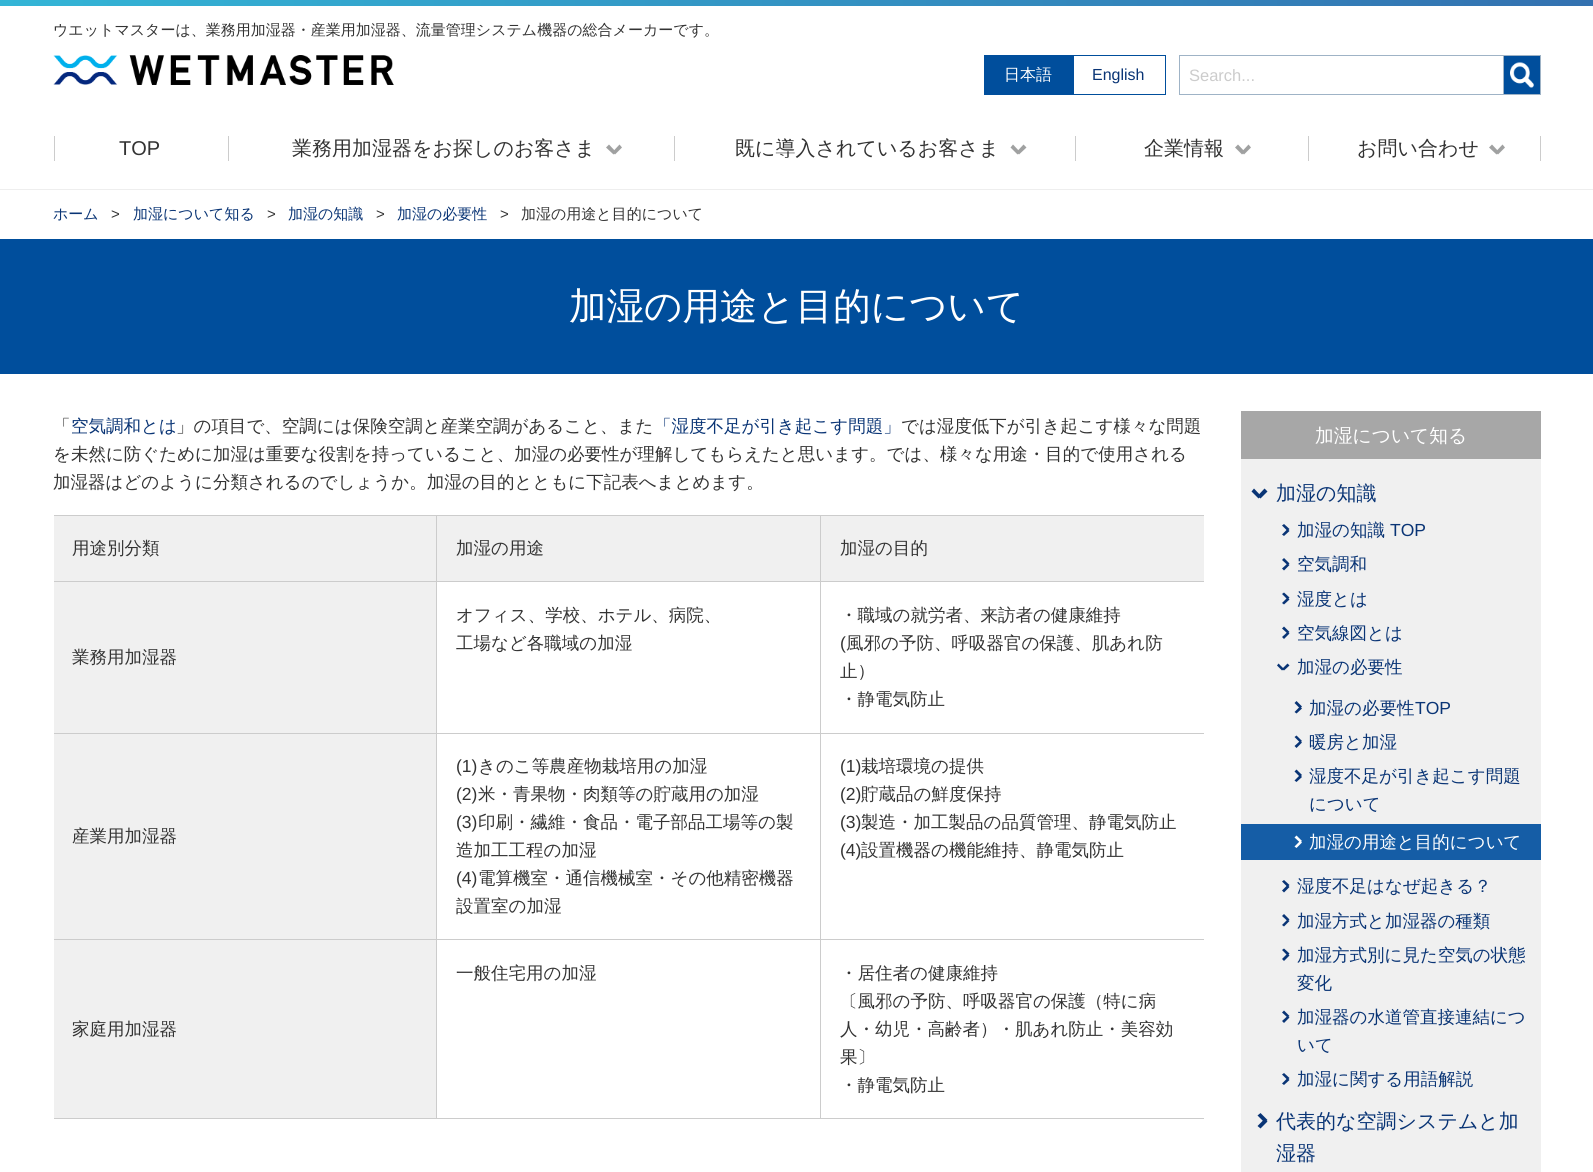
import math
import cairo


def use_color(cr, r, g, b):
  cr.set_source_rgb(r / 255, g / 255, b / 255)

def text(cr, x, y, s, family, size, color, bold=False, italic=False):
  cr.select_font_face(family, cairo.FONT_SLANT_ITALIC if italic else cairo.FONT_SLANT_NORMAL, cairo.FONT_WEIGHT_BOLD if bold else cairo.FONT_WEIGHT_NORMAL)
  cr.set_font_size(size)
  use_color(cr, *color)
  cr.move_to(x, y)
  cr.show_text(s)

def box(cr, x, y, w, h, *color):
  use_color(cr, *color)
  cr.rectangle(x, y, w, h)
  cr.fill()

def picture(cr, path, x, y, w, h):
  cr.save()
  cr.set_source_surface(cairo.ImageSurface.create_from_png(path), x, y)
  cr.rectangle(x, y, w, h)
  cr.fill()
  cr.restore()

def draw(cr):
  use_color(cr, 255, 255, 255)
  cr.paint()
  gradient = cairo.LinearGradient(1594, 3.1, 0, 3.1)
  gradient.add_color_stop_rgba(0, 0.2, 0.443, 0.69, 1)
  gradient.add_color_stop_rgba(1, 0.2, 0.71, 0.839, 1)
  cr.set_source(gradient)
  cr.rectangle(0, 0, 1593, 6)
  cr.fill()
  picture(cr, "img_01.png", 53, 55, 341, 30)
  box(cr, 984, 55, 89, 40, 0, 78, 156)
  cr.rectangle(1073.5, 55.5, 92, 39)
  cr.set_line_width(1)
  cr.stroke()
  cr.rectangle(1179.5, 55.5, 324, 39)
  use_color(cr, 159, 179, 198)
  cr.stroke()
  box(cr, 1504, 56, 36, 38, 0, 78, 156)
  box(cr, 1504, 55, 37, 1, 159, 179, 198)
  box(cr, 1540, 55, 1, 40, 159, 179, 198)
  box(cr, 1504, 94, 37, 1, 159, 179, 198)
  picture(cr, "img_02.png", 1510, 62, 24, 26)
  box(cr, 54, 136, 1, 25, 204, 204, 204)
  box(cr, 228, 136, 1, 25, 204, 204, 204)
  use_color(cr, 160, 161, 161)
  cr.new_path()
  cr.move_to(622, 147.5)
  cr.line_to(615, 154.5)
  cr.line_to(612.5, 152)
  cr.line_to(619.5, 144.5)
  cr.close_path()
  cr.fill()
  cr.new_path()
  cr.move_to(616, 152)
  cr.line_to(613.5, 154.5)
  cr.line_to(606, 147.5)
  cr.line_to(609, 144.5)
  cr.close_path()
  cr.fill()
  box(cr, 674, 136, 1, 25, 204, 204, 204)
  use_color(cr, 160, 161, 161)
  cr.new_path()
  cr.move_to(1026.5, 147.5)
  cr.line_to(1019, 154.5)
  cr.line_to(1016.5, 152)
  cr.line_to(1023.5, 144.5)
  cr.close_path()
  cr.fill()
  cr.new_path()
  cr.move_to(1020, 152)
  cr.line_to(1017.5, 154.5)
  cr.line_to(1010.5, 147.5)
  cr.line_to(1013, 144.5)
  cr.close_path()
  cr.fill()
  box(cr, 1075, 136, 1, 25, 204, 204, 204)
  use_color(cr, 160, 161, 161)
  cr.new_path()
  cr.move_to(1251, 147.5)
  cr.line_to(1244, 154.5)
  cr.line_to(1241.5, 152)
  cr.line_to(1248.5, 144.5)
  cr.close_path()
  cr.fill()
  cr.new_path()
  cr.move_to(1245, 152)
  cr.line_to(1242, 154.5)
  cr.line_to(1235, 147.5)
  cr.line_to(1238, 144.5)
  cr.close_path()
  cr.fill()
  box(cr, 1308, 136, 1, 25, 204, 204, 204)
  use_color(cr, 160, 161, 161)
  cr.new_path()
  cr.move_to(1505, 147.5)
  cr.line_to(1498, 154.5)
  cr.line_to(1495.5, 152)
  cr.line_to(1502.5, 144.5)
  cr.close_path()
  cr.fill()
  cr.new_path()
  cr.move_to(1499, 152)
  cr.line_to(1496.5, 154.5)
  cr.line_to(1489, 147.5)
  cr.line_to(1492, 144.5)
  cr.close_path()
  cr.fill()
  box(cr, 1540, 136, 1, 25, 204, 204, 204)
  box(cr, 0, 189, 1593, 1, 238, 238, 238)
  box(cr, 0, 239, 1593, 135, 0, 78, 156)
  box(cr, 54, 516, 382, 65, 240, 240, 240)
  box(cr, 54, 515, 1150, 1, 204, 204, 204)
  box(cr, 437, 516, 383, 65, 240, 240, 240)
  box(cr, 436, 515, 1, 66, 204, 204, 204)
  box(cr, 821, 516, 383, 65, 240, 240, 240)
  box(cr, 820, 515, 1, 66, 204, 204, 204)
  box(cr, 54, 582, 382, 151, 240, 240, 240)
  box(cr, 54, 581, 1150, 1, 204, 204, 204)
  box(cr, 436, 581, 1, 152, 204, 204, 204)
  box(cr, 820, 581, 1, 152, 204, 204, 204)
  box(cr, 54, 734, 382, 205, 240, 240, 240)
  box(cr, 54, 733, 1150, 1, 204, 204, 204)
  box(cr, 436, 733, 1, 206, 204, 204, 204)
  box(cr, 820, 733, 1, 206, 204, 204, 204)
  box(cr, 54, 940, 382, 178, 240, 240, 240)
  box(cr, 54, 939, 1150, 1, 204, 204, 204)
  box(cr, 54, 1118, 1150, 1, 204, 204, 204)
  box(cr, 436, 939, 1, 180, 204, 204, 204)
  box(cr, 820, 939, 1, 180, 204, 204, 204)
  box(cr, 1241, 459, 300, 713, 240, 240, 240)
  box(cr, 1241, 411, 300, 48, 167, 167, 167)
  use_color(cr, 9, 52, 117)
  cr.new_path()
  cr.move_to(1258.5, 498.5)
  cr.line_to(1251.5, 491.5)
  cr.line_to(1254, 488.5)
  cr.line_to(1261, 496)
  cr.close_path()
  cr.fill()
  cr.new_path()
  cr.move_to(1260.5, 498.5)
  cr.line_to(1257.5, 496)
  cr.line_to(1264.5, 488.5)
  cr.line_to(1267.5, 491.5)
  cr.close_path()
  cr.fill()
  cr.new_path()
  cr.move_to(1289.5, 531)
  cr.line_to(1284, 536)
  cr.line_to(1282, 534.5)
  cr.line_to(1287.5, 529)
  cr.close_path()
  cr.fill()
  cr.new_path()
  cr.move_to(1289.5, 529)
  cr.line_to(1287.5, 531)
  cr.line_to(1282, 525.5)
  cr.line_to(1284, 524)
  cr.close_path()
  cr.fill()
  cr.new_path()
  cr.move_to(1289.5, 565)
  cr.line_to(1284, 570.5)
  cr.line_to(1282, 568.5)
  cr.line_to(1287.5, 563.5)
  cr.close_path()
  cr.fill()
  cr.new_path()
  cr.move_to(1289.5, 563.5)
  cr.line_to(1287.5, 565)
  cr.line_to(1282, 560)
  cr.line_to(1284, 558)
  cr.close_path()
  cr.fill()
  cr.new_path()
  cr.move_to(1289.5, 599.5)
  cr.line_to(1284, 604.5)
  cr.line_to(1282, 603)
  cr.line_to(1287.5, 597.5)
  cr.close_path()
  cr.fill()
  cr.new_path()
  cr.move_to(1289.5, 597.5)
  cr.line_to(1287.5, 599.5)
  cr.line_to(1282, 594)
  cr.line_to(1284, 592.5)
  cr.close_path()
  cr.fill()
  cr.new_path()
  cr.move_to(1289.5, 633.5)
  cr.line_to(1284, 639)
  cr.line_to(1282, 637)
  cr.line_to(1287.5, 632)
  cr.close_path()
  cr.fill()
  cr.new_path()
  cr.move_to(1289.5, 632)
  cr.line_to(1287.5, 633.5)
  cr.line_to(1282, 628.5)
  cr.line_to(1284, 626.5)
  cr.close_path()
  cr.fill()
  cr.new_path()
  cr.move_to(1282, 670.5)
  cr.line_to(1277, 665.5)
  cr.line_to(1278.5, 663.5)
  cr.line_to(1284, 669)
  cr.close_path()
  cr.fill()
  cr.new_path()
  cr.move_to(1284, 670.5)
  cr.line_to(1282, 669)
  cr.line_to(1287.5, 663.5)
  cr.line_to(1289.5, 665.5)
  cr.close_path()
  cr.fill()
  cr.new_path()
  cr.move_to(1302, 708.5)
  cr.line_to(1296.5, 713.5)
  cr.line_to(1294.5, 712)
  cr.line_to(1300, 706.5)
  cr.close_path()
  cr.fill()
  cr.new_path()
  cr.move_to(1302, 706.5)
  cr.line_to(1300, 708.5)
  cr.line_to(1294.5, 703)
  cr.line_to(1296.5, 701)
  cr.close_path()
  cr.fill()
  cr.new_path()
  cr.move_to(1302, 742.5)
  cr.line_to(1296.5, 748)
  cr.line_to(1294.5, 746)
  cr.line_to(1300, 741)
  cr.close_path()
  cr.fill()
  cr.new_path()
  cr.move_to(1302, 741)
  cr.line_to(1300, 742.5)
  cr.line_to(1294.5, 737)
  cr.line_to(1296.5, 735.5)
  cr.close_path()
  cr.fill()
  cr.new_path()
  cr.move_to(1302, 777)
  cr.line_to(1296.5, 782)
  cr.line_to(1294.5, 780.5)
  cr.line_to(1300, 775)
  cr.close_path()
  cr.fill()
  cr.new_path()
  cr.move_to(1302, 775)
  cr.line_to(1300, 777)
  cr.line_to(1294.5, 771.5)
  cr.line_to(1296.5, 769.5)
  cr.close_path()
  cr.fill()
  box(cr, 1241, 824, 300, 36, 21, 93, 166)
  use_color(cr, 255, 255, 255)
  cr.new_path()
  cr.move_to(1302, 842.5)
  cr.line_to(1296.5, 848)
  cr.line_to(1294.5, 846.5)
  cr.line_to(1300, 841)
  cr.close_path()
  cr.fill()
  cr.new_path()
  cr.move_to(1302, 841)
  cr.line_to(1300, 842.5)
  cr.line_to(1294.5, 837.5)
  cr.line_to(1296.5, 835.5)
  cr.close_path()
  cr.fill()
  use_color(cr, 9, 52, 117)
  cr.new_path()
  cr.move_to(1289.5, 887)
  cr.line_to(1284, 892.5)
  cr.line_to(1282, 890.5)
  cr.line_to(1287.5, 885)
  cr.close_path()
  cr.fill()
  cr.new_path()
  cr.move_to(1289.5, 885)
  cr.line_to(1287.5, 887)
  cr.line_to(1282, 881.5)
  cr.line_to(1284, 880)
  cr.close_path()
  cr.fill()
  cr.new_path()
  cr.move_to(1289.5, 921)
  cr.line_to(1284, 926.5)
  cr.line_to(1282, 925)
  cr.line_to(1287.5, 919.5)
  cr.close_path()
  cr.fill()
  cr.new_path()
  cr.move_to(1289.5, 919.5)
  cr.line_to(1287.5, 921)
  cr.line_to(1282, 916)
  cr.line_to(1284, 914)
  cr.close_path()
  cr.fill()
  cr.new_path()
  cr.move_to(1289.5, 955.5)
  cr.line_to(1284, 961)
  cr.line_to(1282, 959)
  cr.line_to(1287.5, 953.5)
  cr.close_path()
  cr.fill()
  cr.new_path()
  cr.move_to(1289.5, 953.5)
  cr.line_to(1287.5, 955.5)
  cr.line_to(1282, 950)
  cr.line_to(1284, 948.5)
  cr.close_path()
  cr.fill()
  cr.new_path()
  cr.move_to(1289.5, 1017.5)
  cr.line_to(1284, 1023)
  cr.line_to(1282, 1021)
  cr.line_to(1287.5, 1016)
  cr.close_path()
  cr.fill()
  cr.new_path()
  cr.move_to(1289.5, 1016)
  cr.line_to(1287.5, 1017.5)
  cr.line_to(1282, 1012.5)
  cr.line_to(1284, 1010.5)
  cr.close_path()
  cr.fill()
  cr.new_path()
  cr.move_to(1289.5, 1080)
  cr.line_to(1284, 1085)
  cr.line_to(1282, 1083.5)
  cr.line_to(1287.5, 1078)
  cr.close_path()
  cr.fill()
  cr.new_path()
  cr.move_to(1289.5, 1078)
  cr.line_to(1287.5, 1080)
  cr.line_to(1282, 1074.5)
  cr.line_to(1284, 1073)
  cr.close_path()
  cr.fill()
  cr.new_path()
  cr.move_to(1267.5, 1121.5)
  cr.line_to(1260.5, 1128.5)
  cr.line_to(1257.5, 1126)
  cr.line_to(1264.5, 1119)
  cr.close_path()
  cr.fill()
  cr.new_path()
  cr.move_to(1267.5, 1120)
  cr.line_to(1264.5, 1122.5)
  cr.line_to(1257.5, 1115.5)
  cr.line_to(1260.5, 1113)
  cr.close_path()
  cr.fill()
  text(cr, 53, 35, "ウエットマスターは、業務用加湿器・産業用加湿器、流量管理システム機器の総合メーカーです。", "WenQuanYi Zen Hei Medium", 15, (51, 51, 51))
  text(cr, 1004, 80, "日本語", "WenQuanYi Zen Hei Medium", 16, (255, 255, 255))
  text(cr, 1092, 80, "English", "Liberation Sans", 16, (9, 52, 117))
  text(cr, 1189, 81, "Search...", "Liberation Sans", 16.5, (204, 204, 204))
  text(cr, 119, 155, "TOP", "Liberation Sans", 20, (51, 51, 51))
  text(cr, 292, 155, "業務用加湿器をお探しのお客さま", "WenQuanYi Zen Hei Medium", 20, (51, 51, 51))
  text(cr, 735, 155, "既に導入されているお客さま", "WenQuanYi Zen Hei Medium", 20, (51, 51, 51))
  text(cr, 1144, 155, "企業情報", "WenQuanYi Zen Hei Medium", 20, (51, 51, 51))
  text(cr, 1357, 155, "お問い合わせ", "WenQuanYi Zen Hei Medium", 20, (51, 51, 51))
  text(cr, 53, 219, "ホーム", "WenQuanYi Zen Hei Medium", 15, (9, 52, 117))
  text(cr, 111, 219, ">", "Liberation Sans", 15, (51, 51, 51))
  text(cr, 133, 219, "加湿について知る", "WenQuanYi Zen Hei Medium", 15, (9, 52, 117))
  text(cr, 267, 219, ">", "Liberation Sans", 15, (51, 51, 51))
  text(cr, 288, 219, "加湿の知識", "WenQuanYi Zen Hei Medium", 15, (9, 52, 117))
  text(cr, 376, 219, ">", "Liberation Sans", 15, (51, 51, 51))
  text(cr, 397, 219, "加湿の必要性", "WenQuanYi Zen Hei Medium", 15, (9, 52, 117))
  text(cr, 500, 219, ">", "Liberation Sans", 15, (51, 51, 51))
  text(cr, 521, 219, "加湿の用途と目的について", "WenQuanYi Zen Hei Medium", 15, (51, 51, 51))
  text(cr, 569, 319, "加湿の用途と目的について", "WenQuanYi Zen Hei Medium", 37.5, (255, 255, 255))
  text(cr, 53, 432, "「", "WenQuanYi Zen Hei Medium", 17.5, (51, 51, 51))
  text(cr, 71, 432, "空気調和とは", "WenQuanYi Zen Hei Medium", 17.5, (9, 52, 117))
  text(cr, 176, 432, "」の項目で、空調には保険空調と産業空調があること、また", "WenQuanYi Zen Hei Medium", 17.5, (51, 51, 51))
  text(cr, 654, 432, "「湿度不足が引き起こす問題」", "WenQuanYi Zen Hei Medium", 17.5, (9, 52, 117))
  text(cr, 901, 432, "では湿度低下が引き起こす様々な問題", "WenQuanYi Zen Hei Medium", 17.5, (51, 51, 51))
  text(cr, 53, 460, "を未然に防ぐために加湿は重要な役割を持っていること、加湿の必要性が理解してもらえたと思います。では、様々な用途・目的で使用される", "WenQuanYi Zen Hei Medium", 17.5, (51, 51, 51))
  text(cr, 53, 488, "加湿器はどのように分類されるのでしょうか。加湿の目的とともに下記表へまとめます。", "WenQuanYi Zen Hei Medium", 17.5, (51, 51, 51))
  text(cr, 72, 554, "用途別分類", "WenQuanYi Zen Hei Medium", 17.5, (51, 51, 51))
  text(cr, 456, 554, "加湿の用途", "WenQuanYi Zen Hei Medium", 17.5, (51, 51, 51))
  text(cr, 840, 554, "加湿の目的", "WenQuanYi Zen Hei Medium", 17.5, (51, 51, 51))
  text(cr, 72, 663, "業務用加湿器", "WenQuanYi Zen Hei Medium", 17.5, (51, 51, 51))
  text(cr, 456, 621, "オフィス、学校、ホテル、病院、", "WenQuanYi Zen Hei Medium", 17.5, (51, 51, 51))
  text(cr, 456, 649, "工場など各職域の加湿", "WenQuanYi Zen Hei Medium", 17.5, (51, 51, 51))
  text(cr, 840, 621, "・職域の就労者、来訪者の健康維持", "WenQuanYi Zen Hei Medium", 17.5, (51, 51, 51))
  text(cr, 840, 649, "(", "Liberation Sans", 17.5, (51, 51, 51))
  text(cr, 846, 649, "風邪の予防、呼吸器官の保護、肌あれ防", "WenQuanYi Zen Hei Medium", 17.5, (51, 51, 51))
  text(cr, 840, 677, "止）", "WenQuanYi Zen Hei Medium", 17.5, (51, 51, 51))
  text(cr, 840, 705, "・静電気防止", "WenQuanYi Zen Hei Medium", 17.5, (51, 51, 51))
  text(cr, 72, 842, "産業用加湿器", "WenQuanYi Zen Hei Medium", 17.5, (51, 51, 51))
  text(cr, 456, 772, "(1)", "Liberation Sans", 17.5, (51, 51, 51))
  text(cr, 478, 772, "きのこ等農産物栽培用の加湿", "WenQuanYi Zen Hei Medium", 17.5, (51, 51, 51))
  text(cr, 456, 800, "(2)", "Liberation Sans", 17.5, (51, 51, 51))
  text(cr, 478, 800, "米・青果物・肉類等の貯蔵用の加湿", "WenQuanYi Zen Hei Medium", 17.5, (51, 51, 51))
  text(cr, 456, 828, "(3)", "Liberation Sans", 17.5, (51, 51, 51))
  text(cr, 478, 828, "印刷・繊維・食品・電子部品工場等の製", "WenQuanYi Zen Hei Medium", 17.5, (51, 51, 51))
  text(cr, 456, 856, "造加工工程の加湿", "WenQuanYi Zen Hei Medium", 17.5, (51, 51, 51))
  text(cr, 456, 884, "(4)", "Liberation Sans", 17.5, (51, 51, 51))
  text(cr, 478, 884, "電算機室・通信機械室・その他精密機器", "WenQuanYi Zen Hei Medium", 17.5, (51, 51, 51))
  text(cr, 456, 912, "設置室の加湿", "WenQuanYi Zen Hei Medium", 17.5, (51, 51, 51))
  text(cr, 840, 772, "(1)", "Liberation Sans", 17.5, (51, 51, 51))
  text(cr, 861, 772, "栽培環境の提供", "WenQuanYi Zen Hei Medium", 17.5, (51, 51, 51))
  text(cr, 840, 800, "(2)", "Liberation Sans", 17.5, (51, 51, 51))
  text(cr, 861, 800, "貯蔵品の鮮度保持", "WenQuanYi Zen Hei Medium", 17.5, (51, 51, 51))
  text(cr, 840, 828, "(3)", "Liberation Sans", 17.5, (51, 51, 51))
  text(cr, 861, 828, "製造・加工製品の品質管理、静電気防止", "WenQuanYi Zen Hei Medium", 17.5, (51, 51, 51))
  text(cr, 840, 856, "(4)", "Liberation Sans", 17.5, (51, 51, 51))
  text(cr, 861, 856, "設置機器の機能維持、静電気防止", "WenQuanYi Zen Hei Medium", 17.5, (51, 51, 51))
  text(cr, 72, 1035, "家庭用加湿器", "WenQuanYi Zen Hei Medium", 17.5, (51, 51, 51))
  text(cr, 456, 979, "一般住宅用の加湿", "WenQuanYi Zen Hei Medium", 17.5, (51, 51, 51))
  text(cr, 840, 979, "・居住者の健康維持", "WenQuanYi Zen Hei Medium", 17.5, (51, 51, 51))
  text(cr, 840, 1007, "〔風邪の予防、呼吸器官の保護（特に病", "WenQuanYi Zen Hei Medium", 17.5, (51, 51, 51))
  text(cr, 840, 1035, "人・幼児・高齢者）・肌あれ防止・美容効", "WenQuanYi Zen Hei Medium", 17.5, (51, 51, 51))
  text(cr, 840, 1063, "果〕", "WenQuanYi Zen Hei Medium", 17.5, (51, 51, 51))
  text(cr, 840, 1091, "・静電気防止", "WenQuanYi Zen Hei Medium", 17.5, (51, 51, 51))
  text(cr, 1315, 442, "加湿について知る", "WenQuanYi Zen Hei Medium", 18.75, (255, 255, 255))
  text(cr, 1276, 500, "加湿の知識", "WenQuanYi Zen Hei Medium", 20, (9, 52, 117))
  text(cr, 1297, 536, "加湿の知識", "WenQuanYi Zen Hei Medium", 17.5, (9, 52, 117))
  text(cr, 1390, 536, "TOP", "Liberation Sans", 17.5, (9, 52, 117))
  text(cr, 1297, 570, "空気調和", "WenQuanYi Zen Hei Medium", 17.5, (9, 52, 117))
  text(cr, 1297, 605, "湿度とは", "WenQuanYi Zen Hei Medium", 17.5, (9, 52, 117))
  text(cr, 1297, 639, "空気線図とは", "WenQuanYi Zen Hei Medium", 17.5, (9, 52, 117))
  text(cr, 1297, 673, "加湿の必要性", "WenQuanYi Zen Hei Medium", 17.5, (9, 52, 117))
  text(cr, 1309, 714, "加湿の必要性", "WenQuanYi Zen Hei Medium", 17.5, (9, 52, 117))
  text(cr, 1415, 714, "TOP", "Liberation Sans", 17.5, (9, 52, 117))
  text(cr, 1309, 748, "暖房と加湿", "WenQuanYi Zen Hei Medium", 17.5, (9, 52, 117))
  text(cr, 1309, 782, "湿度不足が引き起こす問題", "WenQuanYi Zen Hei Medium", 17.5, (9, 52, 117))
  text(cr, 1309, 810, "について", "WenQuanYi Zen Hei Medium", 17.5, (9, 52, 117))
  text(cr, 1309, 848, "加湿の用途と目的について", "WenQuanYi Zen Hei Medium", 17.5, (255, 255, 255))
  text(cr, 1297, 892, "湿度不足はなぜ起きる？", "WenQuanYi Zen Hei Medium", 17.5, (9, 52, 117))
  text(cr, 1297, 927, "加湿方式と加湿器の種類", "WenQuanYi Zen Hei Medium", 17.5, (9, 52, 117))
  text(cr, 1297, 961, "加湿方式別に見た空気の状態", "WenQuanYi Zen Hei Medium", 17.5, (9, 52, 117))
  text(cr, 1297, 989, "変化", "WenQuanYi Zen Hei Medium", 17.5, (9, 52, 117))
  text(cr, 1297, 1023, "加湿器の水道管直接連結につ", "WenQuanYi Zen Hei Medium", 17.5, (9, 52, 117))
  text(cr, 1297, 1051, "いて", "WenQuanYi Zen Hei Medium", 17.5, (9, 52, 117))
  text(cr, 1297, 1085, "加湿に関する用語解説", "WenQuanYi Zen Hei Medium", 17.5, (9, 52, 117))
  text(cr, 1276, 1128, "代表的な空調システムと加", "WenQuanYi Zen Hei Medium", 20, (9, 52, 117))
  text(cr, 1276, 1160, "湿器", "WenQuanYi Zen Hei Medium", 20, (9, 52, 117))


surface = cairo.ImageSurface(cairo.FORMAT_RGB24, 1593, 1172)
cr = cairo.Context(surface)
options = cairo.FontOptions()
options.set_hint_metrics(cairo.HINT_METRICS_OFF)
options.set_hint_style(cairo.HINT_STYLE_NONE)
cr.set_font_options(options)
cr.set_miter_limit(4)
draw(cr)
surface.write_to_png("out.png")
